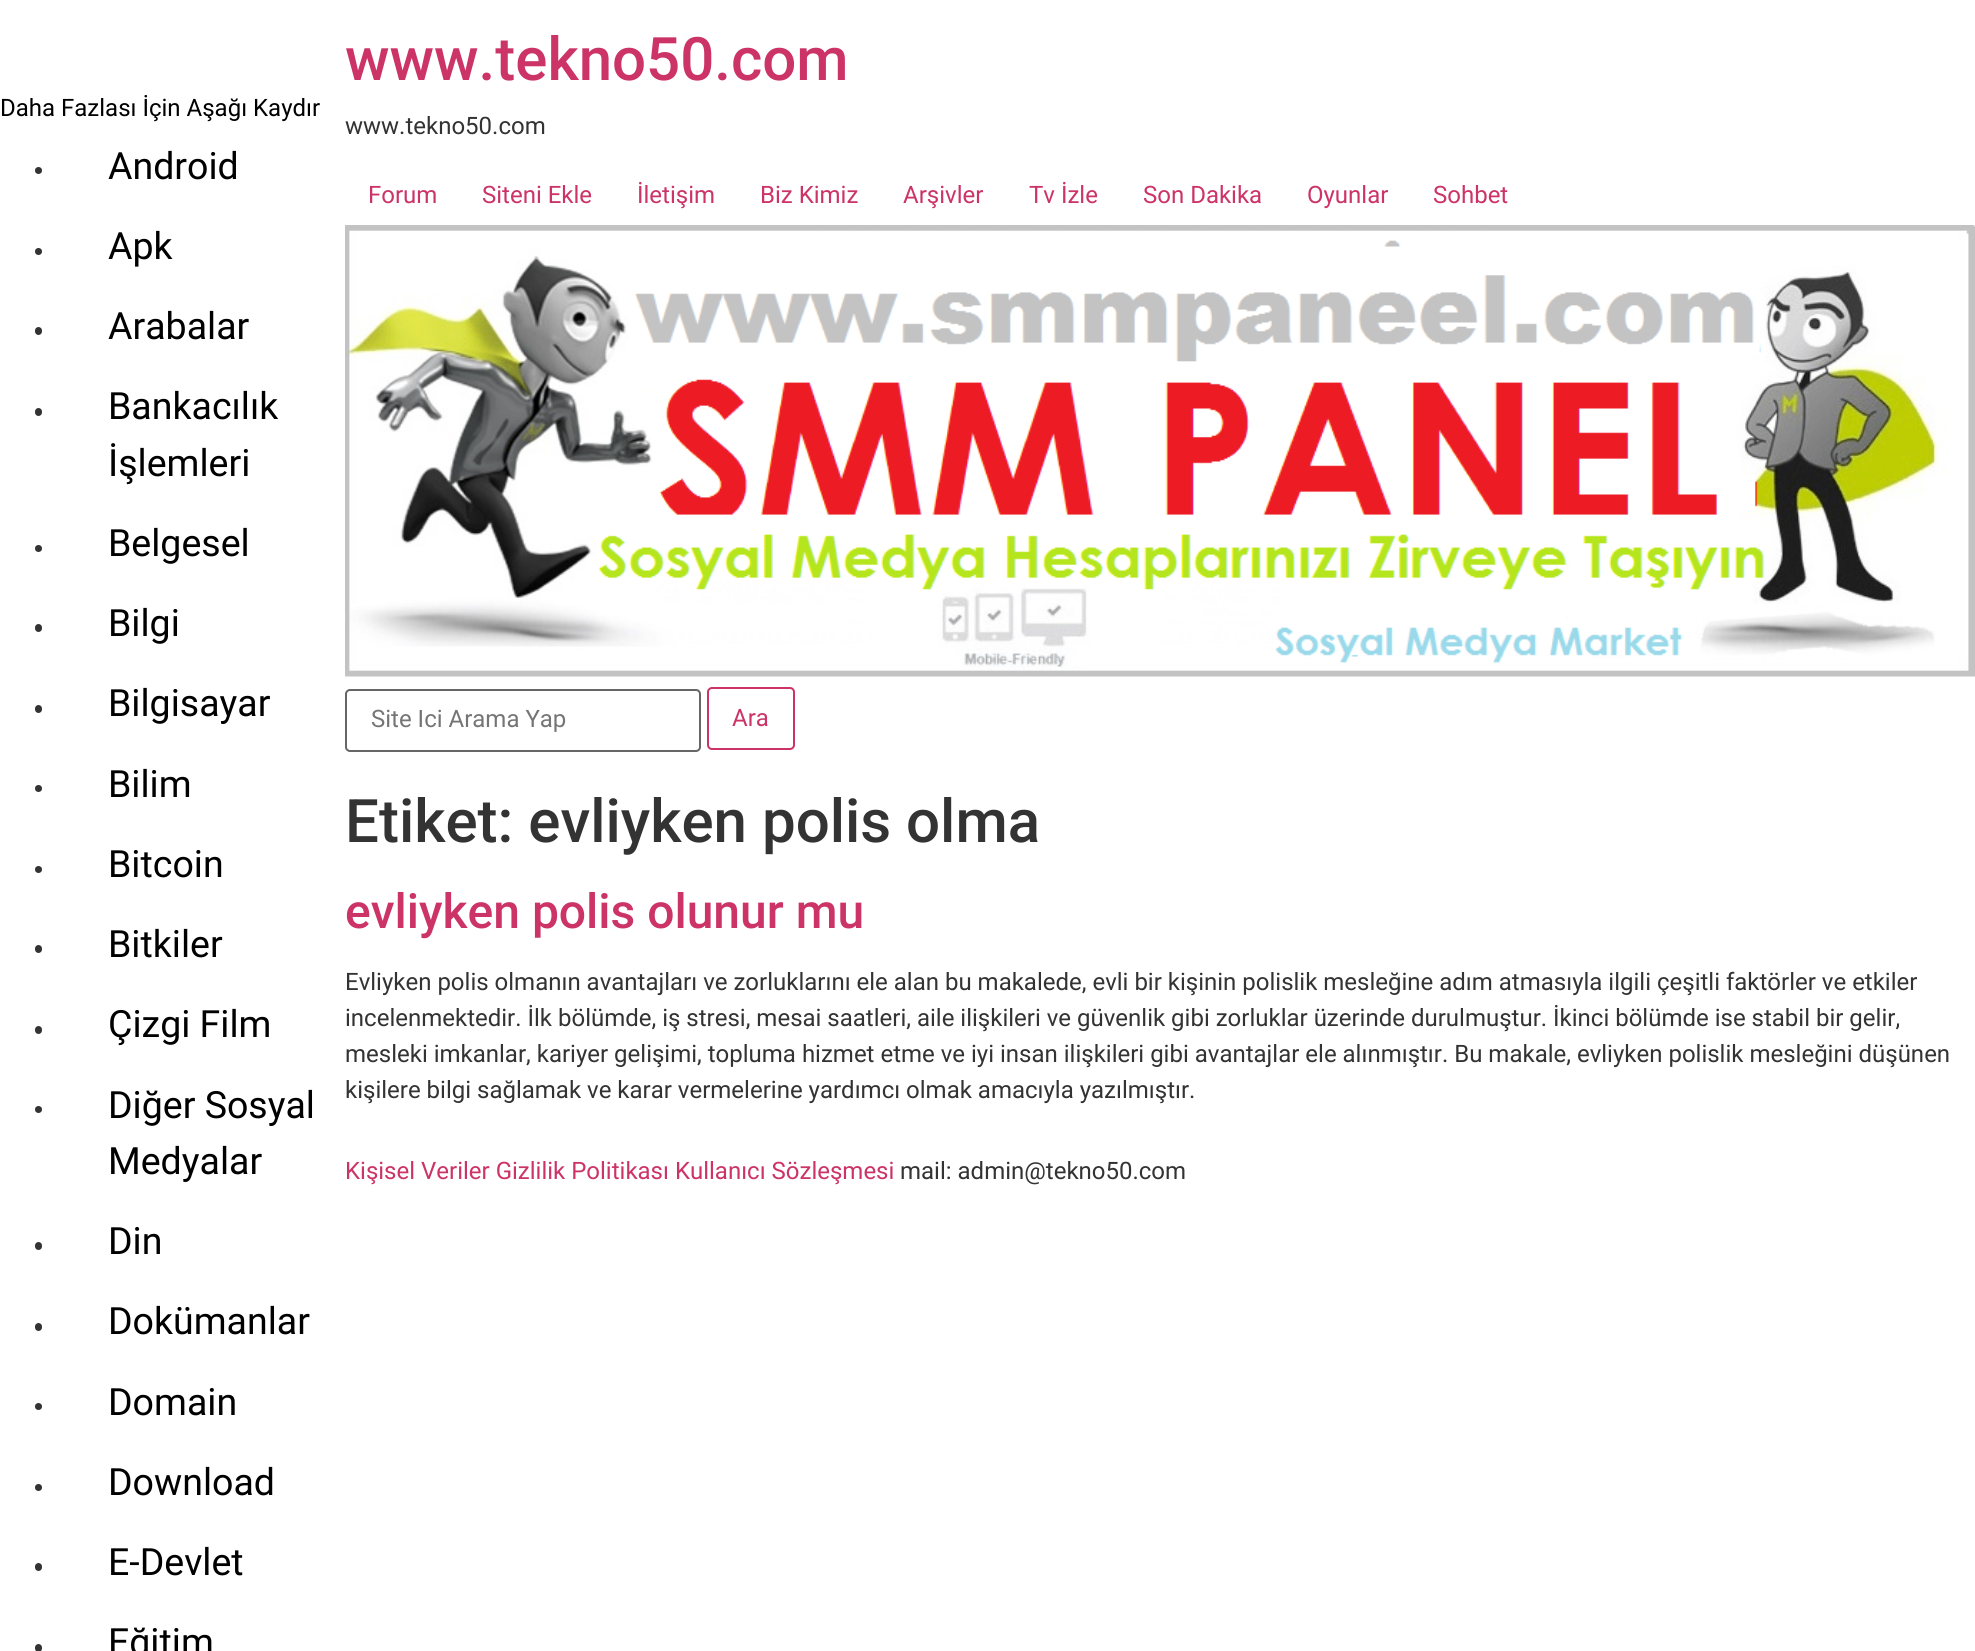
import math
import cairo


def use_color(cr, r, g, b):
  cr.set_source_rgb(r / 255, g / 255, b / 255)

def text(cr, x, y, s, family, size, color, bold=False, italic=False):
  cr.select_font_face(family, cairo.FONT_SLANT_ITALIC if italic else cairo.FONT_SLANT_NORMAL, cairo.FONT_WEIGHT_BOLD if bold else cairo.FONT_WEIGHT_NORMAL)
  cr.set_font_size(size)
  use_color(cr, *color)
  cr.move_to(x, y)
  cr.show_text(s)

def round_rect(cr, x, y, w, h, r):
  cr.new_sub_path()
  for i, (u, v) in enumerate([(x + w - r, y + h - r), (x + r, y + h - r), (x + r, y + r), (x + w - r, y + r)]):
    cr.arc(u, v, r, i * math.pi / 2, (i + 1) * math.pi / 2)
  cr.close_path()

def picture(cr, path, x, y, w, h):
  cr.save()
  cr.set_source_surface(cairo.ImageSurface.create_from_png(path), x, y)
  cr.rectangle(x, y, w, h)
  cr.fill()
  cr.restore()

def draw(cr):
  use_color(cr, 255, 255, 255)
  cr.paint()
  use_color(cr, 51, 51, 51)
  cr.arc(38.5, 170.5, 3.5, 0, 2 * math.pi)
  cr.fill()
  cr.arc(38.5, 251.5, 3.5, 0, 2 * math.pi)
  cr.fill()
  round_rect(cr, 35, 327, 7, 8, 3.5)
  cr.fill()
  round_rect(cr, 35, 408, 7, 8, 3.5)
  cr.fill()
  cr.arc(38.5, 548.5, 3.5, 0, 2 * math.pi)
  cr.fill()
  round_rect(cr, 35, 624, 7, 8, 3.5)
  cr.fill()
  round_rect(cr, 35, 705, 7, 8, 3.5)
  cr.fill()
  cr.arc(38.5, 788.5, 3.5, 0, 2 * math.pi)
  cr.fill()
  cr.arc(38.5, 869.5, 3.5, 0, 2 * math.pi)
  cr.fill()
  round_rect(cr, 35, 945, 7, 8, 3.5)
  cr.fill()
  round_rect(cr, 35, 1026, 7, 8, 3.5)
  cr.fill()
  cr.arc(38.5, 1109.5, 3.5, 0, 2 * math.pi)
  cr.fill()
  round_rect(cr, 35, 1242, 7, 8, 3.5)
  cr.fill()
  round_rect(cr, 35, 1323, 7, 8, 3.5)
  cr.fill()
  cr.arc(38.5, 1406.5, 3.5, 0, 2 * math.pi)
  cr.fill()
  cr.arc(38.5, 1487.5, 3.5, 0, 2 * math.pi)
  cr.fill()
  round_rect(cr, 35, 1563, 7, 8, 3.5)
  cr.fill()
  round_rect(cr, 35, 1644, 7, 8, 3.5)
  cr.fill()
  picture(cr, "img_01.png", 345, 225, 1630, 452)
  round_rect(cr, 346, 690, 354, 61, 4)
  use_color(cr, 102, 102, 102)
  cr.stroke()
  round_rect(cr, 708, 688, 86, 61, 4)
  use_color(cr, 204, 51, 102)
  cr.stroke()
  text(cr, 0, 116, "Daha Fazlası İçin Aşağı Kaydır", "Roboto", 24, (0, 0, 0))
  text(cr, 108, 179, "Android", "Roboto", 37.5, (0, 0, 0))
  text(cr, 108, 259, "Apk", "Roboto", 37.5, (0, 0, 0))
  text(cr, 108, 339, "Arabalar", "Roboto", 37.5, (0, 0, 0))
  text(cr, 108, 419, "Bankacılık", "Roboto", 37.5, (0, 0, 0))
  text(cr, 108, 476, "İşlemleri", "Roboto", 37.5, (0, 0, 0))
  text(cr, 108, 556, "Belgesel", "Roboto", 37.5, (0, 0, 0))
  text(cr, 108, 636, "Bilgi", "Roboto", 37.5, (0, 0, 0))
  text(cr, 108, 716, "Bilgisayar", "Roboto", 37.5, (0, 0, 0))
  text(cr, 108, 797, "Bilim", "Roboto", 37.5, (0, 0, 0))
  text(cr, 108, 877, "Bitcoin", "Roboto", 37.5, (0, 0, 0))
  text(cr, 108, 957, "Bitkiler", "Roboto", 37.5, (0, 0, 0))
  text(cr, 108, 1037, "Çizgi Film", "Roboto", 37.5, (0, 0, 0))
  text(cr, 108, 1118, "Diğer Sosyal", "Roboto", 37.5, (0, 0, 0))
  text(cr, 108, 1174, "Medyalar", "Roboto", 37.5, (0, 0, 0))
  text(cr, 108, 1254, "Din", "Roboto", 37.5, (0, 0, 0))
  text(cr, 108, 1334, "Dokümanlar", "Roboto", 37.5, (0, 0, 0))
  text(cr, 108, 1415, "Domain", "Roboto", 37.5, (0, 0, 0))
  text(cr, 108, 1495, "Download", "Roboto", 37.5, (0, 0, 0))
  text(cr, 108, 1575, "E-Devlet", "Roboto", 37.5, (0, 0, 0))
  text(cr, 108, 1655, "Eğitim", "Roboto", 37.5, (0, 0, 0))
  text(cr, 345, 80, "www.tekno50.com", "Roboto Medium", 60, (204, 51, 102))
  text(cr, 345, 134, "www.tekno50.com", "Roboto", 24, (51, 51, 51))
  text(cr, 368, 203, "Forum", "Roboto", 24, (204, 51, 102))
  text(cr, 482, 203, "Siteni Ekle", "Roboto", 24, (204, 51, 102))
  text(cr, 637, 203, "İletişim", "Roboto", 24, (204, 51, 102))
  text(cr, 760, 203, "Biz Kimiz", "Roboto", 24, (204, 51, 102))
  text(cr, 903, 203, "Arşivler", "Roboto", 24, (204, 51, 102))
  text(cr, 1029, 203, "Tv İzle", "Roboto", 24, (204, 51, 102))
  text(cr, 1143, 203, "Son Dakika", "Roboto", 24, (204, 51, 102))
  text(cr, 1307, 203, "Oyunlar", "Roboto", 24, (204, 51, 102))
  text(cr, 1433, 203, "Sohbet", "Roboto", 24, (204, 51, 102))
  text(cr, 371, 727, "Site Ici Arama Yap", "Roboto", 24, (117, 117, 117))
  text(cr, 732, 726, "Ara", "Roboto", 24, (204, 51, 102))
  text(cr, 345, 842, "Etiket: evliyken polis olma", "Roboto Medium", 60, (51, 51, 51))
  text(cr, 345, 928, "evliyken polis olunur mu", "Roboto Medium", 48, (204, 51, 102))
  text(cr, 345, 990, "Evliyken polis olmanın avantajları ve zorluklarını ele alan bu makalede, evli bir kişinin polislik mesleğine adım atmasıyla ilgili çeşitli faktörler ve etkiler", "Roboto", 24, (51, 51, 51))
  text(cr, 345, 1026, "incelenmektedir. İlk bölümde, iş stresi, mesai saatleri, aile ilişkileri ve güvenlik gibi zorluklar üzerinde durulmuştur. İkinci bölümde ise stabil bir gelir,", "Roboto", 24, (51, 51, 51))
  text(cr, 345, 1062, "mesleki imkanlar, kariyer gelişimi, topluma hizmet etme ve iyi insan ilişkileri gibi avantajlar ele alınmıştır. Bu makale, evliyken polislik mesleğini düşünen", "Roboto", 24, (51, 51, 51))
  text(cr, 345, 1098, "kişilere bilgi sağlamak ve karar vermelerine yardımcı olmak amacıyla yazılmıştır.", "Roboto", 24, (51, 51, 51))
  text(cr, 345, 1179, "Kişisel Veriler Gizlilik Politikası Kullanıcı Sözleşmesi", "Roboto", 24, (204, 51, 102))
  text(cr, 900, 1179, "mail: admin@tekno50.com", "Roboto", 24, (51, 51, 51))


surface = cairo.ImageSurface(cairo.FORMAT_RGB24, 1975, 1651)
cr = cairo.Context(surface)
options = cairo.FontOptions()
options.set_hint_metrics(cairo.HINT_METRICS_OFF)
options.set_hint_style(cairo.HINT_STYLE_NONE)
cr.set_font_options(options)
cr.set_miter_limit(4)
draw(cr)
surface.write_to_png("out.png")
